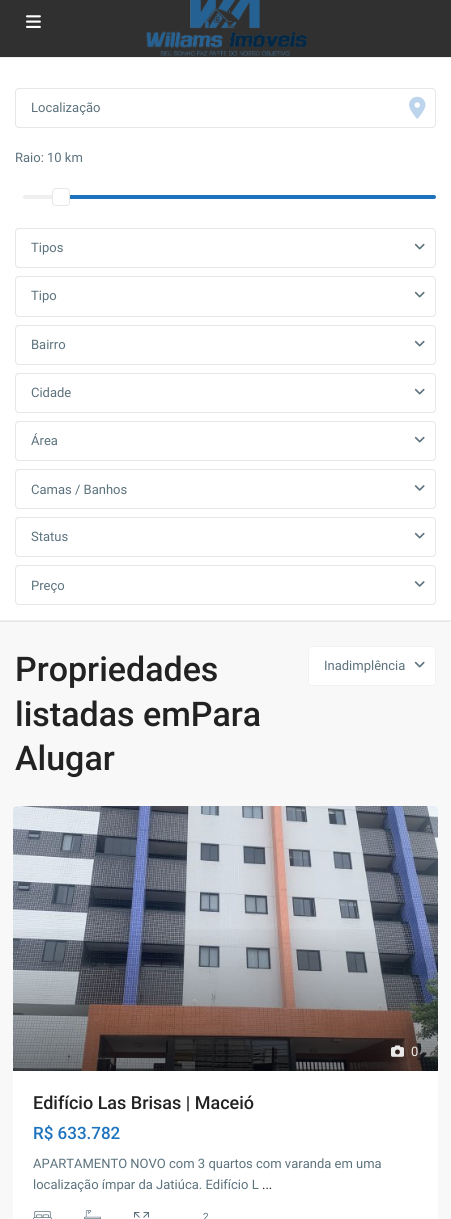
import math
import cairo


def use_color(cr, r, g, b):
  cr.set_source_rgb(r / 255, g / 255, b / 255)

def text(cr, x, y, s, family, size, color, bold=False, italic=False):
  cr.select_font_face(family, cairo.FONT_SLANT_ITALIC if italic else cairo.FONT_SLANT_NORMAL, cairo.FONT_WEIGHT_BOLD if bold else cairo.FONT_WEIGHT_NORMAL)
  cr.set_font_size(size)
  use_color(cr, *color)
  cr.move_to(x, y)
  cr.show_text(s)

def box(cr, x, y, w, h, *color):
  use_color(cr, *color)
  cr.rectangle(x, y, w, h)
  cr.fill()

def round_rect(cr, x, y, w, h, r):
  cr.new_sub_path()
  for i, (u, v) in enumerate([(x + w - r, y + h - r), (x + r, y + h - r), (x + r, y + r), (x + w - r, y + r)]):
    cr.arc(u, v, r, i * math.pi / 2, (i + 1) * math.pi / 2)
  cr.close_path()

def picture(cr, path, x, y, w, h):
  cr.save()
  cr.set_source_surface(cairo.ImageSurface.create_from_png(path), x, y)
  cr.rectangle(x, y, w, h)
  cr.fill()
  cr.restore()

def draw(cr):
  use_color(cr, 248, 248, 248)
  cr.paint()
  box(cr, 0, 0, 451, 57, 48, 48, 48)
  picture(cr, "img_01.png", 26, 15, 15, 13)
  picture(cr, "img_02.png", 146, 0, 161, 56)
  box(cr, 0, 621, 451, 1, 231, 231, 231)
  box(cr, 0, 58, 451, 562, 255, 255, 255)
  box(cr, 0, 57, 451, 1, 239, 239, 239)
  box(cr, 0, 620, 451, 1, 239, 239, 239)
  round_rect(cr, 15.5, 88.5, 420, 39, 3.5)
  use_color(cr, 231, 231, 231)
  cr.set_line_width(1)
  cr.stroke()
  picture(cr, "img_03.png", 409, 96, 17, 23)
  use_color(cr, 239, 239, 239)
  round_rect(cr, 23, 195, 413, 4, 2)
  cr.fill()
  use_color(cr, 30, 115, 190)
  round_rect(cr, 61, 195, 375, 4, 2)
  cr.fill()
  use_color(cr, 255, 255, 255)
  round_rect(cr, 52.5, 188.5, 17, 17, 3.5)
  cr.fill_preserve()
  use_color(cr, 231, 231, 231)
  cr.stroke()
  round_rect(cr, 15.5, 228.5, 420, 39, 3.5)
  cr.stroke()
  picture(cr, "img_04.png", 414, 243, 11, 7)
  round_rect(cr, 15.5, 276.5, 420, 40, 3.5)
  cr.stroke()
  picture(cr, "img_04.png", 414, 291, 11, 7)
  round_rect(cr, 15.5, 325.5, 420, 39, 3.5)
  cr.stroke()
  picture(cr, "img_04.png", 414, 340, 11, 7)
  round_rect(cr, 15.5, 373.5, 420, 39, 3.5)
  cr.stroke()
  picture(cr, "img_04.png", 414, 388, 11, 7)
  round_rect(cr, 15.5, 421.5, 420, 39, 3.5)
  cr.stroke()
  picture(cr, "img_04.png", 414, 436, 11, 7)
  round_rect(cr, 15.5, 469.5, 420, 39, 3.5)
  cr.stroke()
  picture(cr, "img_05.png", 414, 485, 11, 6)
  round_rect(cr, 15.5, 517.5, 420, 39, 3.5)
  cr.stroke()
  picture(cr, "img_04.png", 414, 532, 11, 7)
  round_rect(cr, 15.5, 565.5, 420, 39, 3.5)
  cr.stroke()
  picture(cr, "img_05.png", 414, 581, 11, 6)
  use_color(cr, 255, 255, 255)
  round_rect(cr, 308.5, 646.5, 127, 39, 3.5)
  cr.fill_preserve()
  use_color(cr, 242, 242, 242)
  cr.stroke()
  picture(cr, "img_04.png", 414, 661, 11, 7)
  use_color(cr, 255, 255, 255)
  round_rect(cr, 12.5, 805.5, 426, 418, 3.5)
  cr.fill_preserve()
  use_color(cr, 248, 248, 248)
  cr.stroke()
  picture(cr, "img_06.png", 13, 806, 425, 265)
  gradient = cairo.LinearGradient(226, 1071, 226, 806)
  gradient.add_color_stop_rgba(0, 0, 0, 0, 0.5)
  gradient.add_color_stop_rgba(0.56, 0, 0, 0, 0)
  cr.set_source(gradient)
  cr.rectangle(13, 929, 425, 142)
  cr.fill()
  picture(cr, "img_07.png", 391, 1045, 13, 12)
  picture(cr, "img_08.png", 33, 1211, 19, 8)
  picture(cr, "img_09.png", 84, 1210, 17, 9)
  picture(cr, "img_10.png", 134, 1212, 15, 6)
  text(cr, 31, 112, "Localização", "Roboto", 13, (92, 114, 125))
  text(cr, 15, 162, "Raio: 10 km", "Roboto", 13, (92, 114, 125))
  text(cr, 31, 252, "Tipos", "Roboto", 13, (92, 114, 125))
  text(cr, 31, 300, "Tipo", "Roboto", 13, (92, 114, 125))
  text(cr, 31, 349, "Bairro", "Roboto", 13, (92, 114, 125))
  text(cr, 31, 397, "Cidade", "Roboto", 13, (92, 114, 125))
  text(cr, 31, 445, "Área", "Roboto", 13, (92, 114, 125))
  text(cr, 31, 494, "Camas / Banhos", "Roboto", 13, (92, 114, 125))
  text(cr, 31, 541, "Status", "Roboto", 13, (92, 114, 125))
  text(cr, 31, 590, "Preço", "Roboto", 13, (92, 114, 125))
  text(cr, 324, 670, "Inadimplência", "Roboto", 13, (92, 114, 125))
  text(cr, 15, 681, "Propriedades", "Roboto Medium", 34, (34, 34, 34))
  text(cr, 15, 726, "listadas emPara", "Roboto Medium", 34, (34, 34, 34))
  text(cr, 15, 770, "Alugar", "Roboto Medium", 34, (34, 34, 34))
  text(cr, 411, 1056, "0", "Roboto", 13, (238, 235, 234))
  text(cr, 33, 1109, "Edifício Las Brisas | Maceió", "Roboto Medium", 18, (34, 34, 34))
  text(cr, 33, 1139, "R$ 633.782", "Roboto Medium", 17, (30, 115, 190))
  text(cr, 33, 1168, "APARTAMENTO NOVO com 3 quartos com varanda em uma", "Roboto", 13, (92, 114, 125))
  text(cr, 33, 1189, "localização ímpar da Jatiúca. Edifício L", "Roboto", 13, (92, 114, 125))
  text(cr, 262, 1189, "...", "Roboto", 13, (34, 34, 34))
  text(cr, 203, 1220, "2", "Roboto", 10, (92, 114, 125))


surface = cairo.ImageSurface(cairo.FORMAT_RGB24, 451, 1219)
cr = cairo.Context(surface)
options = cairo.FontOptions()
options.set_hint_metrics(cairo.HINT_METRICS_OFF)
options.set_hint_style(cairo.HINT_STYLE_NONE)
cr.set_font_options(options)
cr.set_miter_limit(4)
draw(cr)
surface.write_to_png("out.png")
